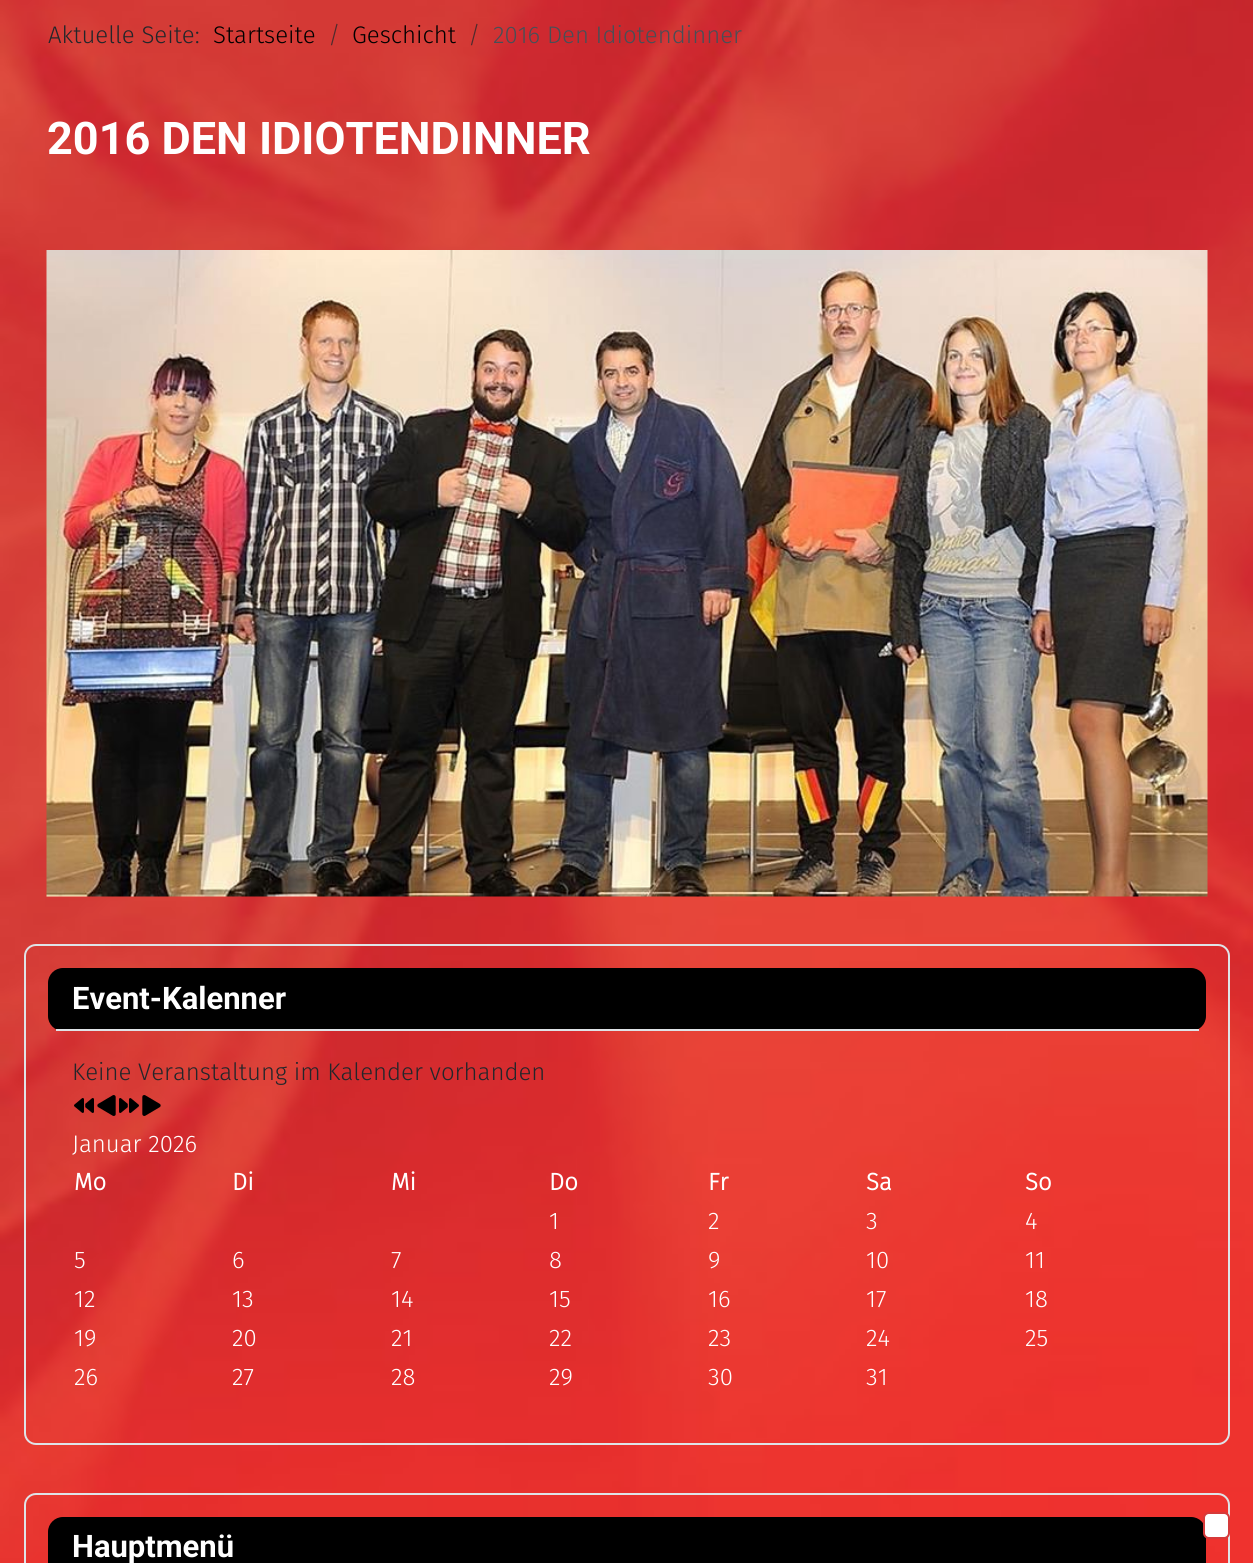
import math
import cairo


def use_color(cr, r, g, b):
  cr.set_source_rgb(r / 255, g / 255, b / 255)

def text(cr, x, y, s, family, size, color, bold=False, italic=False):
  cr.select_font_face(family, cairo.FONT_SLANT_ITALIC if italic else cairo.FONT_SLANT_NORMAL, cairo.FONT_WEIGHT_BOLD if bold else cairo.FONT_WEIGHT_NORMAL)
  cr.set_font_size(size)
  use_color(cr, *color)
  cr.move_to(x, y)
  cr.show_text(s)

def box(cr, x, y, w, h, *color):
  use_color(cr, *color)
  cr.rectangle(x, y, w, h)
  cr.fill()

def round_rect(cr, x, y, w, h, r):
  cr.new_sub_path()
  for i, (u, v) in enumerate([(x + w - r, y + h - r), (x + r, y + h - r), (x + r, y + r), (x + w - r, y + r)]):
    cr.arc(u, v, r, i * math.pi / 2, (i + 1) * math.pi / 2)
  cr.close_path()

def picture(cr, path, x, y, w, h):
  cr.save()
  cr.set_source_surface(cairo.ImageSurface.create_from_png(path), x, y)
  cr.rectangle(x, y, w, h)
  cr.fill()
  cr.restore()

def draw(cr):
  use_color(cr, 255, 255, 255)
  cr.paint()
  picture(cr, "img_01.png", 0, 0, 1253, 1563)
  picture(cr, "img_02.png", 46, 250, 1162, 647)
  round_rect(cr, 25, 945, 1204, 499, 11)
  use_color(cr, 223, 227, 231)
  cr.stroke()
  use_color(cr, 0, 0, 0)
  round_rect(cr, 48, 968, 1158, 63, 15)
  cr.fill()
  box(cr, 56, 1029, 1143, 2, 223, 227, 231)
  picture(cr, "img_03.png", 74, 1098, 20, 15)
  picture(cr, "img_04.png", 97, 1095, 19, 21)
  picture(cr, "img_05.png", 119, 1098, 20, 15)
  picture(cr, "img_06.png", 142, 1095, 19, 21)
  round_rect(cr, 25, 1494, 1204, 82, 11)
  cr.stroke()
  use_color(cr, 0, 0, 0)
  round_rect(cr, 48, 1517, 1158, 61, 15)
  cr.fill()
  use_color(cr, 255, 255, 255)
  round_rect(cr, 1204, 1513, 25, 25, 5)
  cr.fill_preserve()
  use_color(cr, 214, 58, 58)
  cr.stroke()
  text(cr, 48, 43, "Aktuelle Seite:", "Fira Sans Light", 24, (34, 38, 42))
  text(cr, 213, 43, "Startseite", "Fira Sans Light", 24, (0, 0, 0))
  text(cr, 328, 43, "/", "Fira Sans Light", 24, (79, 43, 45))
  text(cr, 352, 43, "Geschicht", "Fira Sans Light", 24, (0, 0, 0))
  text(cr, 468, 43, "/", "Fira Sans Light", 24, (79, 43, 45))
  text(cr, 493, 43, "2016 Den Idiotendinner", "Fira Sans Light", 24, (72, 79, 86))
  text(cr, 47, 154, "2016 DEN IDIOTENDINNER", "Roboto", 45, (255, 255, 255), bold=True)
  text(cr, 72, 1009, "Event-Kalenner", "Roboto", 31, (255, 255, 255), bold=True)
  text(cr, 72, 1080, "Keine Veranstaltung im Kalender vorhanden", "Fira Sans Light", 24, (34, 38, 42))
  text(cr, 72, 1152, "Januar 2026", "Fira Sans Light", 24, (255, 255, 255))
  text(cr, 74, 1190, "Mo", "Fira Sans", 24, (255, 255, 255), bold=True)
  text(cr, 232, 1190, "Di", "Fira Sans", 24, (255, 255, 255), bold=True)
  text(cr, 391, 1190, "Mi", "Fira Sans", 24, (255, 255, 255), bold=True)
  text(cr, 549, 1190, "Do", "Fira Sans", 24, (255, 255, 255), bold=True)
  text(cr, 708, 1190, "Fr", "Fira Sans", 24, (255, 255, 255), bold=True)
  text(cr, 866, 1190, "Sa", "Fira Sans", 24, (255, 255, 255), bold=True)
  text(cr, 1025, 1190, "So", "Fira Sans", 24, (255, 255, 255), bold=True)
  text(cr, 549, 1229, "1", "Fira Sans Light", 24, (255, 255, 255))
  text(cr, 708, 1229, "2", "Fira Sans Light", 24, (255, 255, 255))
  text(cr, 866, 1229, "3", "Fira Sans Light", 24, (255, 255, 255))
  text(cr, 1025, 1229, "4", "Fira Sans Light", 24, (255, 255, 255))
  text(cr, 74, 1268, "5", "Fira Sans Light", 24, (255, 255, 255))
  text(cr, 232, 1268, "6", "Fira Sans Light", 24, (255, 255, 255))
  text(cr, 391, 1268, "7", "Fira Sans Light", 24, (255, 255, 255))
  text(cr, 549, 1268, "8", "Fira Sans Light", 24, (255, 255, 255))
  text(cr, 708, 1268, "9", "Fira Sans Light", 24, (255, 255, 255))
  text(cr, 866, 1268, "10", "Fira Sans Light", 24, (255, 255, 255))
  text(cr, 1025, 1268, "11", "Fira Sans Light", 24, (255, 255, 255))
  text(cr, 74, 1307, "12", "Fira Sans Light", 24, (255, 255, 255))
  text(cr, 232, 1307, "13", "Fira Sans Light", 24, (255, 255, 255))
  text(cr, 391, 1307, "14", "Fira Sans Light", 24, (255, 255, 255))
  text(cr, 549, 1307, "15", "Fira Sans Light", 24, (255, 255, 255))
  text(cr, 708, 1307, "16", "Fira Sans Light", 24, (255, 255, 255))
  text(cr, 866, 1307, "17", "Fira Sans Light", 24, (255, 255, 255))
  text(cr, 1025, 1307, "18", "Fira Sans Light", 24, (255, 255, 255))
  text(cr, 74, 1346, "19", "Fira Sans Light", 24, (255, 255, 255))
  text(cr, 232, 1346, "20", "Fira Sans Light", 24, (255, 255, 255))
  text(cr, 391, 1346, "21", "Fira Sans Light", 24, (255, 255, 255))
  text(cr, 549, 1346, "22", "Fira Sans Light", 24, (255, 255, 255))
  text(cr, 708, 1346, "23", "Fira Sans Light", 24, (255, 255, 255))
  text(cr, 866, 1346, "24", "Fira Sans Light", 24, (255, 255, 255))
  text(cr, 1025, 1346, "25", "Fira Sans Light", 24, (255, 255, 255))
  text(cr, 74, 1385, "26", "Fira Sans Light", 24, (255, 255, 255))
  text(cr, 232, 1385, "27", "Fira Sans Light", 24, (255, 255, 255))
  text(cr, 391, 1385, "28", "Fira Sans Light", 24, (255, 255, 255))
  text(cr, 549, 1385, "29", "Fira Sans Light", 24, (255, 255, 255))
  text(cr, 708, 1385, "30", "Fira Sans Light", 24, (255, 255, 255))
  text(cr, 866, 1385, "31", "Fira Sans Light", 24, (255, 255, 255))
  text(cr, 72, 1557, "Hauptmenü", "Roboto", 31, (255, 255, 255), bold=True)


surface = cairo.ImageSurface(cairo.FORMAT_RGB24, 1253, 1563)
cr = cairo.Context(surface)
options = cairo.FontOptions()
options.set_hint_metrics(cairo.HINT_METRICS_OFF)
options.set_hint_style(cairo.HINT_STYLE_NONE)
cr.set_font_options(options)
cr.set_miter_limit(4)
draw(cr)
surface.write_to_png("out.png")
